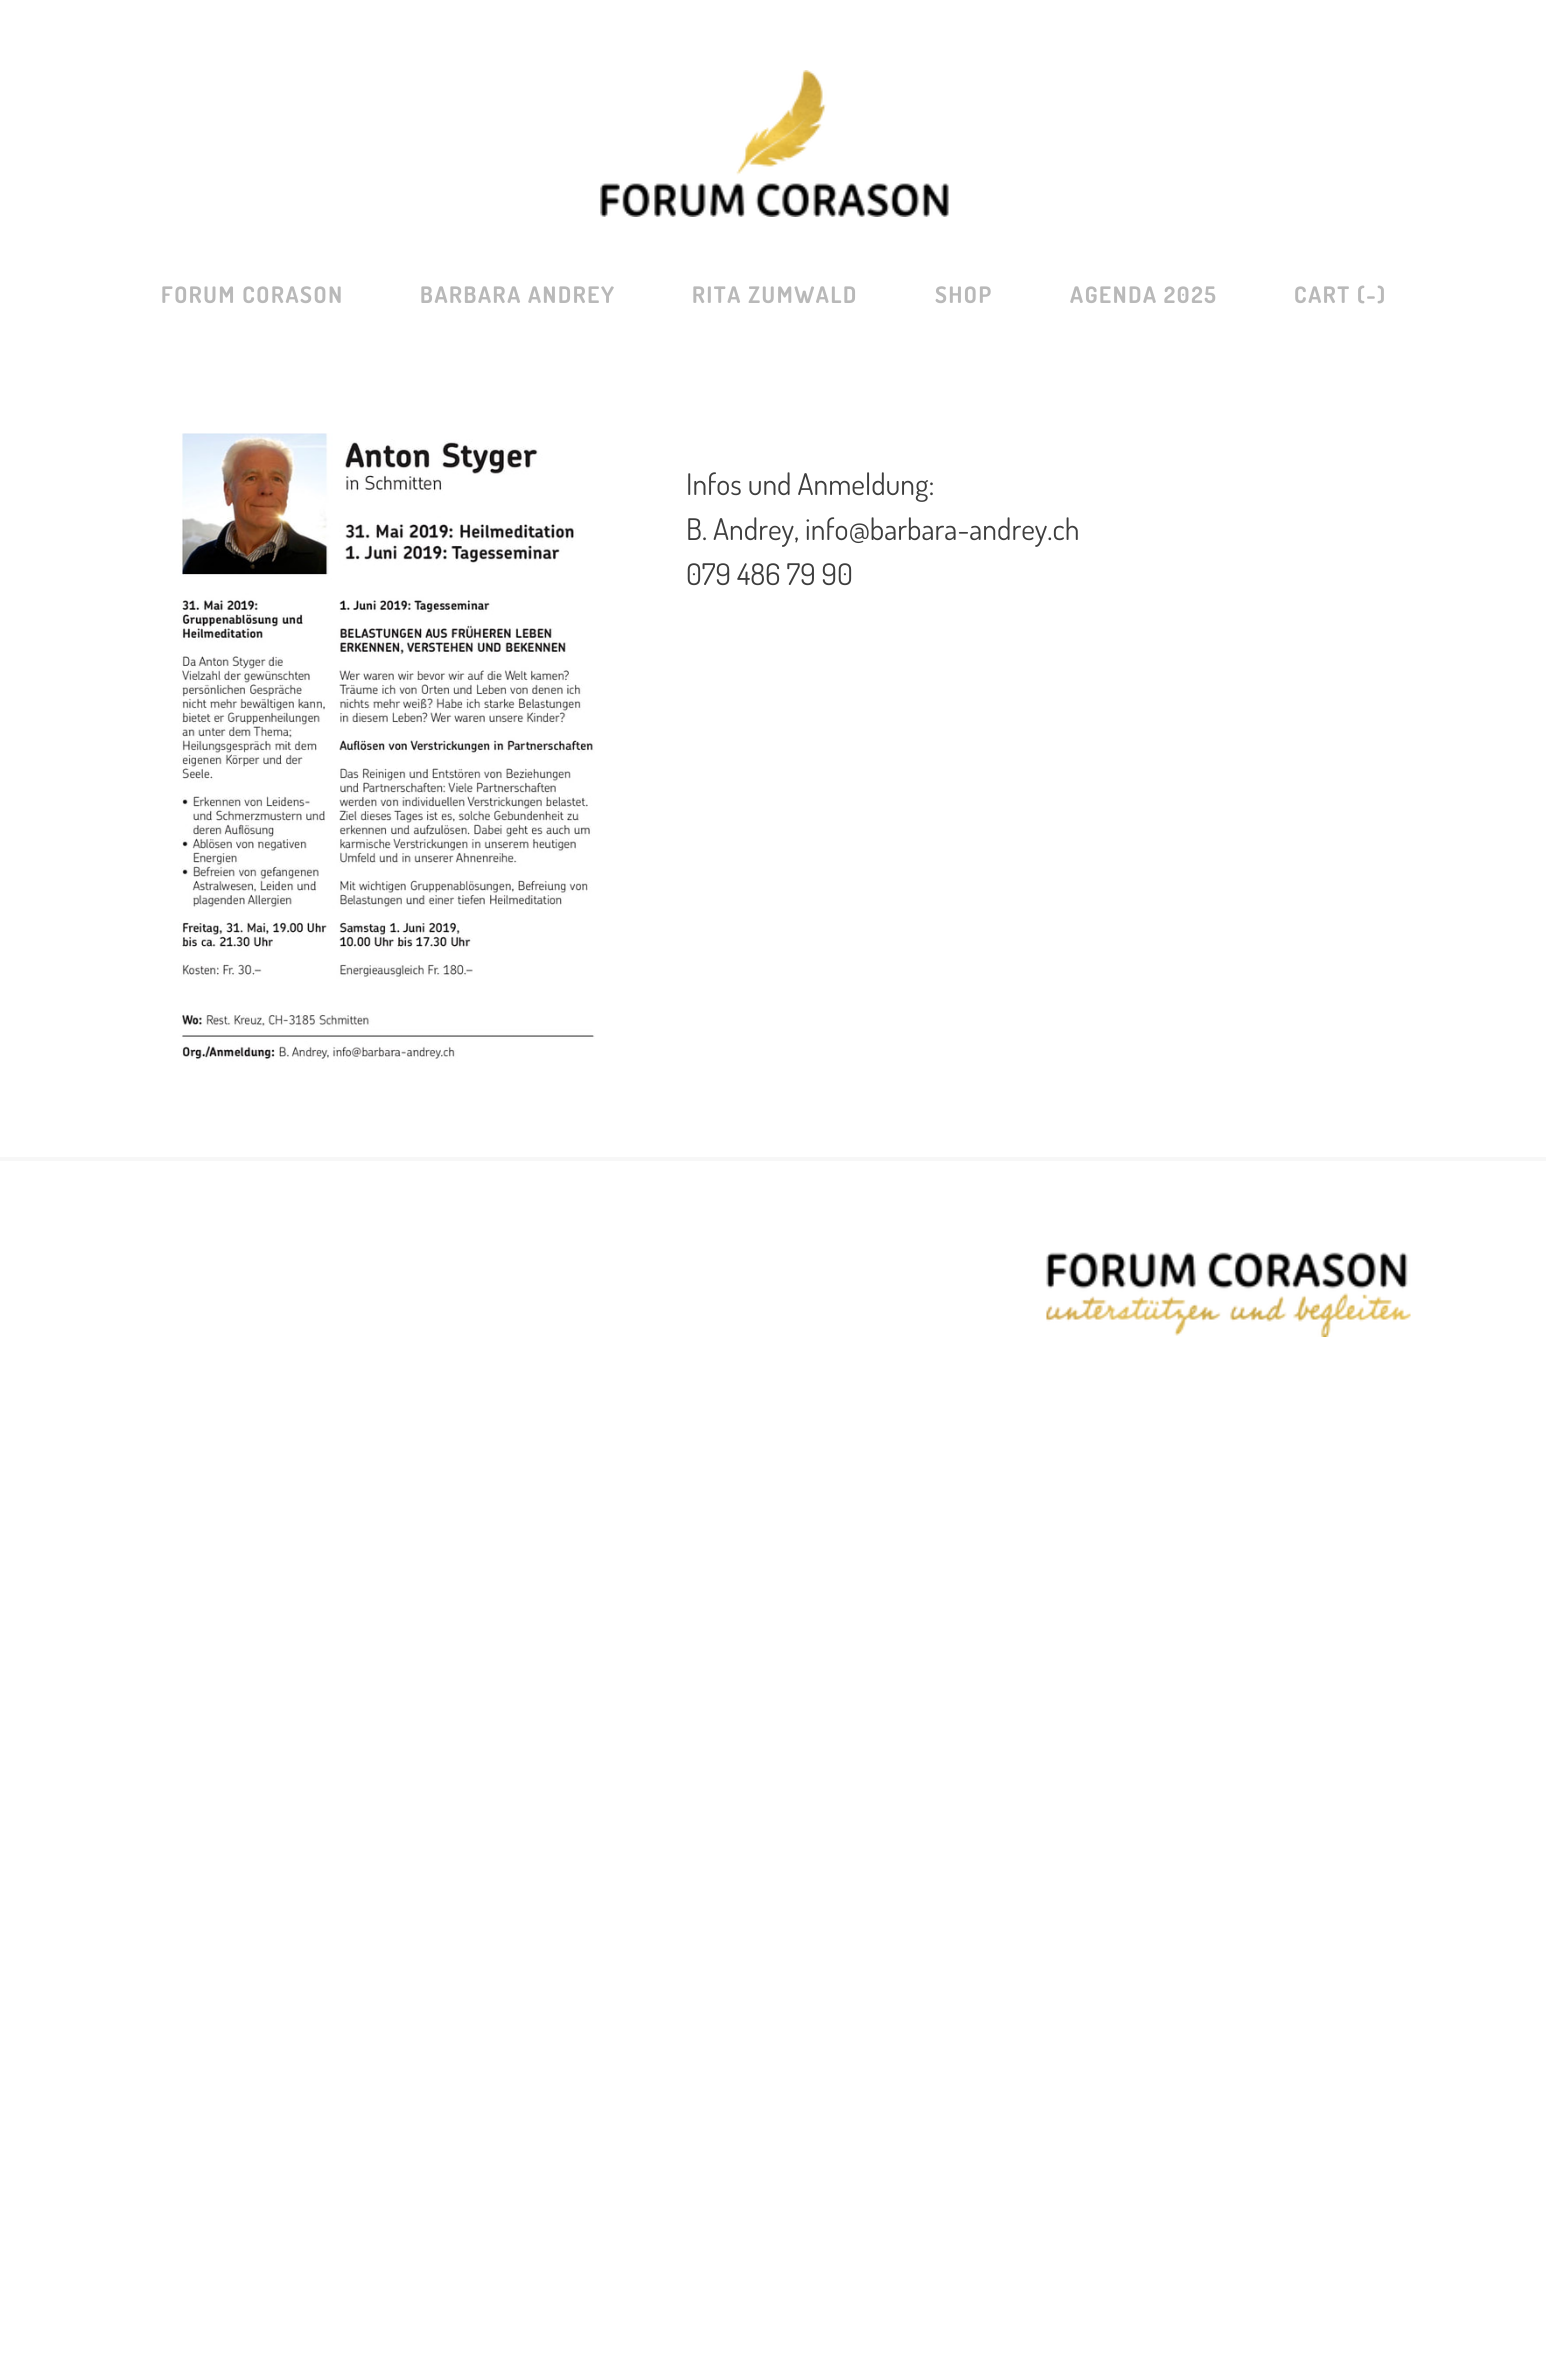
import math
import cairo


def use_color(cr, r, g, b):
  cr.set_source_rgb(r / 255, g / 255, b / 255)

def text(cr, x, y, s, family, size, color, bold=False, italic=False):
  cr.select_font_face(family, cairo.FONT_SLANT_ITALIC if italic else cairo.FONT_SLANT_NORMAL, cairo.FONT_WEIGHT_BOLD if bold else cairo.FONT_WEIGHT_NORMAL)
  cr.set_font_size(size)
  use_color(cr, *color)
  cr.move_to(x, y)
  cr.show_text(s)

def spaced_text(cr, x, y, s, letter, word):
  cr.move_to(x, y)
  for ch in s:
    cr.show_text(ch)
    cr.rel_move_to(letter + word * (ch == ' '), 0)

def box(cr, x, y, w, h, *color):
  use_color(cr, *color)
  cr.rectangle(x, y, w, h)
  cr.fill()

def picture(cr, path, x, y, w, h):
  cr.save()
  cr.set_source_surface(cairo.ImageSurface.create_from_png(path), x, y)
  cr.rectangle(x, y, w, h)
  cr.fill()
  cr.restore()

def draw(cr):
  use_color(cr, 255, 255, 255)
  cr.paint()
  picture(cr, "img_01.png", 600, 70, 349, 147)
  picture(cr, "img_02.png", 179, 433, 416, 629)
  box(cr, 0, 1157, 1546, 4, 247, 247, 247)
  picture(cr, "img_03.png", 1046, 1252, 365, 85)
  cr.select_font_face("Dosis", cairo.FONT_SLANT_NORMAL, cairo.FONT_WEIGHT_BOLD)
  cr.set_font_size(22.75)
  use_color(cr, 185, 185, 185)
  spaced_text(cr, 161, 303, "FORUM CORASON", 1.6, 0)
  spaced_text(cr, 420, 303, "BARBARA ANDREY", 1.6, 0)
  spaced_text(cr, 692, 303, "RITA ZUMWALD", 1.6, 0)
  spaced_text(cr, 935, 303, "SHOP", 1.6, 0)
  spaced_text(cr, 1070, 303, "AGENDA 2025", 1.6, 0)
  spaced_text(cr, 1294, 303, "CART (-)", 1.6, 0)
  text(cr, 686, 495, "Infos und Anmeldung:", "Dosis", 29.75, (62, 62, 62))
  text(cr, 686, 540, "B. Andrey, info@barbara-andrey.ch", "Dosis", 29.75, (62, 62, 62))
  text(cr, 686, 585, "079 486 79 90", "Dosis", 29.75, (62, 62, 62))


surface = cairo.ImageSurface(cairo.FORMAT_RGB24, 1546, 2372)
cr = cairo.Context(surface)
options = cairo.FontOptions()
options.set_hint_metrics(cairo.HINT_METRICS_OFF)
options.set_hint_style(cairo.HINT_STYLE_NONE)
cr.set_font_options(options)
cr.set_miter_limit(4)
draw(cr)
surface.write_to_png("out.png")
